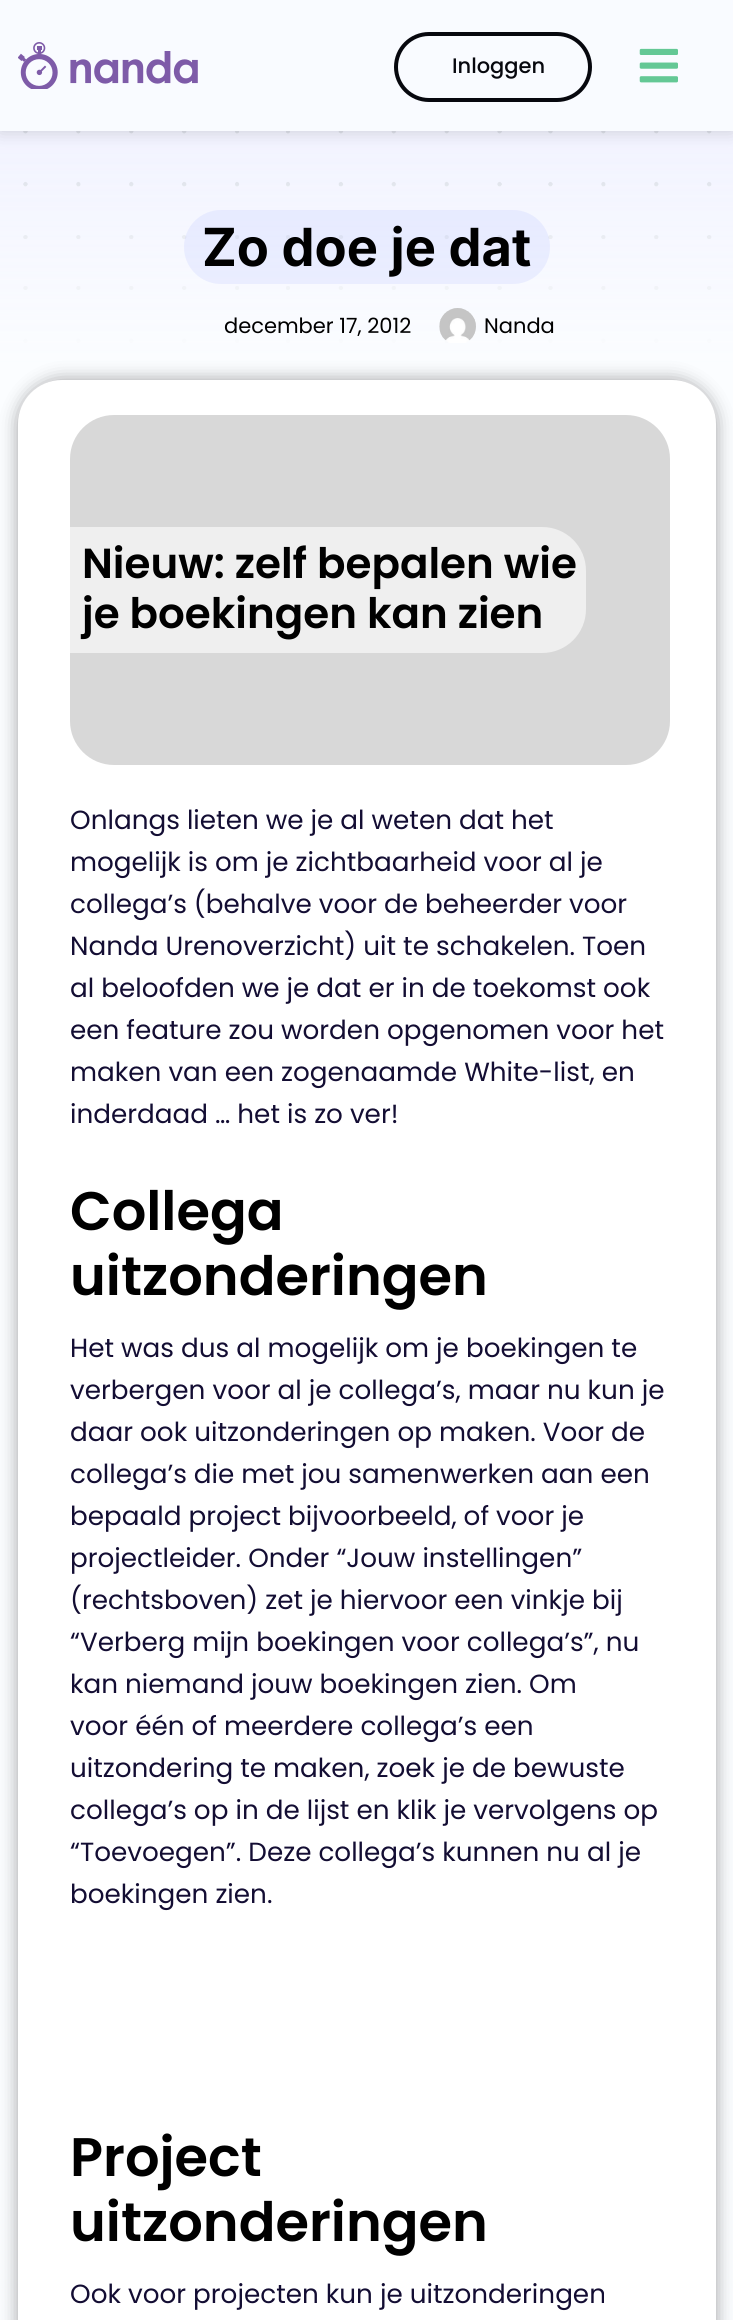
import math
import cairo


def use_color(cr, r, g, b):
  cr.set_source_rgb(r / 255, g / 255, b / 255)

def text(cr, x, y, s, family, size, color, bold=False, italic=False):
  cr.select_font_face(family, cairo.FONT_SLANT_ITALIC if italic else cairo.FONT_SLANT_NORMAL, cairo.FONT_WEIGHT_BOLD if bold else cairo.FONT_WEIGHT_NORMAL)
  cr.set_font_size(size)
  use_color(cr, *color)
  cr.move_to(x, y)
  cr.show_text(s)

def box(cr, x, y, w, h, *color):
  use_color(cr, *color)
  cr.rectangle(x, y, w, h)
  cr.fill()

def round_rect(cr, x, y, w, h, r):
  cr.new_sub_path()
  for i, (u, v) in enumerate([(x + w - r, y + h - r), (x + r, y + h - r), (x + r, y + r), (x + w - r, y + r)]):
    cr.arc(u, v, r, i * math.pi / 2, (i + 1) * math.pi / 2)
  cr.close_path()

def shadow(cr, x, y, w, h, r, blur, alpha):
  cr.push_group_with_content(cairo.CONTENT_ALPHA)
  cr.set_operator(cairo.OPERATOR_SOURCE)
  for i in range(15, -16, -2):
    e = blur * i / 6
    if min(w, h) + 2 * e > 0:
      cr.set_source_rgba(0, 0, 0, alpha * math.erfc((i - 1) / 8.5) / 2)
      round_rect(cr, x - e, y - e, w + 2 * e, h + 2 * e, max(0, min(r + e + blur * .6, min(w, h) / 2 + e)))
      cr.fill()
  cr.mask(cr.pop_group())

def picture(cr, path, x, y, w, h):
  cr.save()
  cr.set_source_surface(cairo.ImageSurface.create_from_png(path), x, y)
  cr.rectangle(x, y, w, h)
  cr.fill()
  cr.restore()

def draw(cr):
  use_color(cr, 240, 241, 255)
  cr.paint()
  picture(cr, "img_03.png", 23, 131, 689, 212)
  gradient = cairo.LinearGradient(367, 0, 367, 362)
  gradient.add_color_stop_rgba(0.4, 0.984, 0.992, 1, 0.23)
  gradient.add_color_stop_rgba(1, 0.984, 0.992, 1, 1)
  cr.set_source(gradient)
  cr.rectangle(0, 131, 733, 231)
  cr.fill()
  use_color(cr, 0, 0, 0)
  shadow(cr, 0, 0, 733, 131, 0, 9, 0.16)
  box(cr, 0, 0, 733, 131, 249, 251, 255)
  picture(cr, "img_01.png", 18, 42, 180, 47)
  round_rect(cr, 396, 34, 194, 66, 33)
  use_color(cr, 7, 8, 14)
  cr.set_line_width(4)
  cr.stroke()
  picture(cr, "img_02.png", 639, 48, 39, 35)
  cr.set_source_rgba(0.427, 0.482, 0.98, 0.1)
  round_rect(cr, 184, 210, 366, 74, 37)
  cr.fill()
  picture(cr, "img_04.png", 439, 308, 37, 35)
  box(cr, 0, 362, 733, 1958, 251, 253, 255)
  use_color(cr, 0, 0, 0)
  shadow(cr, 18, 380, 698, 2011, 44, 9, 0.36)
  use_color(cr, 255, 255, 255)
  round_rect(cr, 18, 380, 698, 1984, 44)
  cr.fill()
  use_color(cr, 216, 216, 216)
  round_rect(cr, 70, 415, 600, 350, 44)
  cr.fill()
  use_color(cr, 239, 239, 239)
  cr.new_path()
  cr.move_to(70, 527)
  cr.line_to(542, 527)
  cr.curve_to(566.5, 527, 586, 546.5, 586, 571)
  cr.line_to(586, 609)
  cr.curve_to(586, 633.5, 566.5, 653, 542, 653)
  cr.line_to(70, 653)
  cr.close_path()
  cr.fill()
  text(cr, 452, 73, "Inloggen", "Poppins Medium", 21, (7, 8, 14))
  text(cr, 202, 266, "Zo doe je dat", "Inter", 52.5, (0, 0, 0), bold=True)
  text(cr, 224, 333, "december 17, 2012", "Poppins", 21, (0, 0, 0))
  text(cr, 484, 333, "Nanda", "Poppins", 21, (0, 0, 0))
  text(cr, 82, 578, "Nieuw: zelf bepalen wie", "Poppins SemiBold", 42, (0, 0, 0))
  text(cr, 82, 628, "je boekingen kan zien", "Poppins SemiBold", 42, (0, 0, 0))
  text(cr, 70, 829, "Onlangs lieten we je al weten dat het", "Poppins", 26.25, (19, 13, 51))
  text(cr, 70, 871, "mogelijk is om je zichtbaarheid voor al je", "Poppins", 26.25, (19, 13, 51))
  text(cr, 70, 913, "collega’s (behalve voor de beheerder voor", "Poppins", 26.25, (19, 13, 51))
  text(cr, 70, 955, "Nanda Urenoverzicht) uit te schakelen. Toen", "Poppins", 26.25, (19, 13, 51))
  text(cr, 70, 997, "al beloofden we je dat er in de toekomst ook", "Poppins", 26.25, (19, 13, 51))
  text(cr, 70, 1039, "een feature zou worden opgenomen voor het", "Poppins", 26.25, (19, 13, 51))
  text(cr, 70, 1081, "maken van een zogenaamde White-list, en", "Poppins", 26.25, (19, 13, 51))
  text(cr, 70, 1123, "inderdaad … het is zo ver!", "Poppins", 26.25, (19, 13, 51))
  text(cr, 70, 1230, "Collega", "Poppins SemiBold", 54.25, (0, 0, 0))
  text(cr, 70, 1295, "uitzonderingen", "Poppins SemiBold", 54.25, (0, 0, 0))
  text(cr, 70, 1357, "Het was dus al mogelijk om je boekingen te", "Poppins", 26.25, (19, 13, 51))
  text(cr, 70, 1399, "verbergen voor al je collega’s, maar nu kun je", "Poppins", 26.25, (19, 13, 51))
  text(cr, 70, 1441, "daar ook uitzonderingen op maken. Voor de", "Poppins", 26.25, (19, 13, 51))
  text(cr, 70, 1483, "collega’s die met jou samenwerken aan een", "Poppins", 26.25, (19, 13, 51))
  text(cr, 70, 1525, "bepaald project bijvoorbeeld, of voor je", "Poppins", 26.25, (19, 13, 51))
  text(cr, 70, 1567, "projectleider. Onder “Jouw instellingen”", "Poppins", 26.25, (19, 13, 51))
  text(cr, 70, 1609, "(rechtsboven) zet je hiervoor een vinkje bij", "Poppins", 26.25, (19, 13, 51))
  text(cr, 70, 1651, "“Verberg mijn boekingen voor collega’s”, nu", "Poppins", 26.25, (19, 13, 51))
  text(cr, 70, 1693, "kan niemand jouw boekingen zien. Om", "Poppins", 26.25, (19, 13, 51))
  text(cr, 70, 1735, "voor één of meerdere collega’s een", "Poppins", 26.25, (19, 13, 51))
  text(cr, 70, 1777, "uitzondering te maken, zoek je de bewuste", "Poppins", 26.25, (19, 13, 51))
  text(cr, 70, 1819, "collega’s op in de lijst en klik je vervolgens op", "Poppins", 26.25, (19, 13, 51))
  text(cr, 70, 1861, "“Toevoegen”. Deze collega’s kunnen nu al je", "Poppins", 26.25, (19, 13, 51))
  text(cr, 70, 1903, "boekingen zien.", "Poppins", 26.25, (19, 13, 51))
  text(cr, 70, 2176, "Project", "Poppins SemiBold", 54.25, (0, 0, 0))
  text(cr, 70, 2241, "uitzonderingen", "Poppins SemiBold", 54.25, (0, 0, 0))
  text(cr, 70, 2303, "Ook voor projecten kun je uitzonderingen", "Poppins", 26.25, (19, 13, 51))


surface = cairo.ImageSurface(cairo.FORMAT_RGB24, 733, 2320)
cr = cairo.Context(surface)
options = cairo.FontOptions()
options.set_hint_metrics(cairo.HINT_METRICS_OFF)
options.set_hint_style(cairo.HINT_STYLE_NONE)
cr.set_font_options(options)
cr.set_miter_limit(4)
draw(cr)
surface.write_to_png("out.png")
